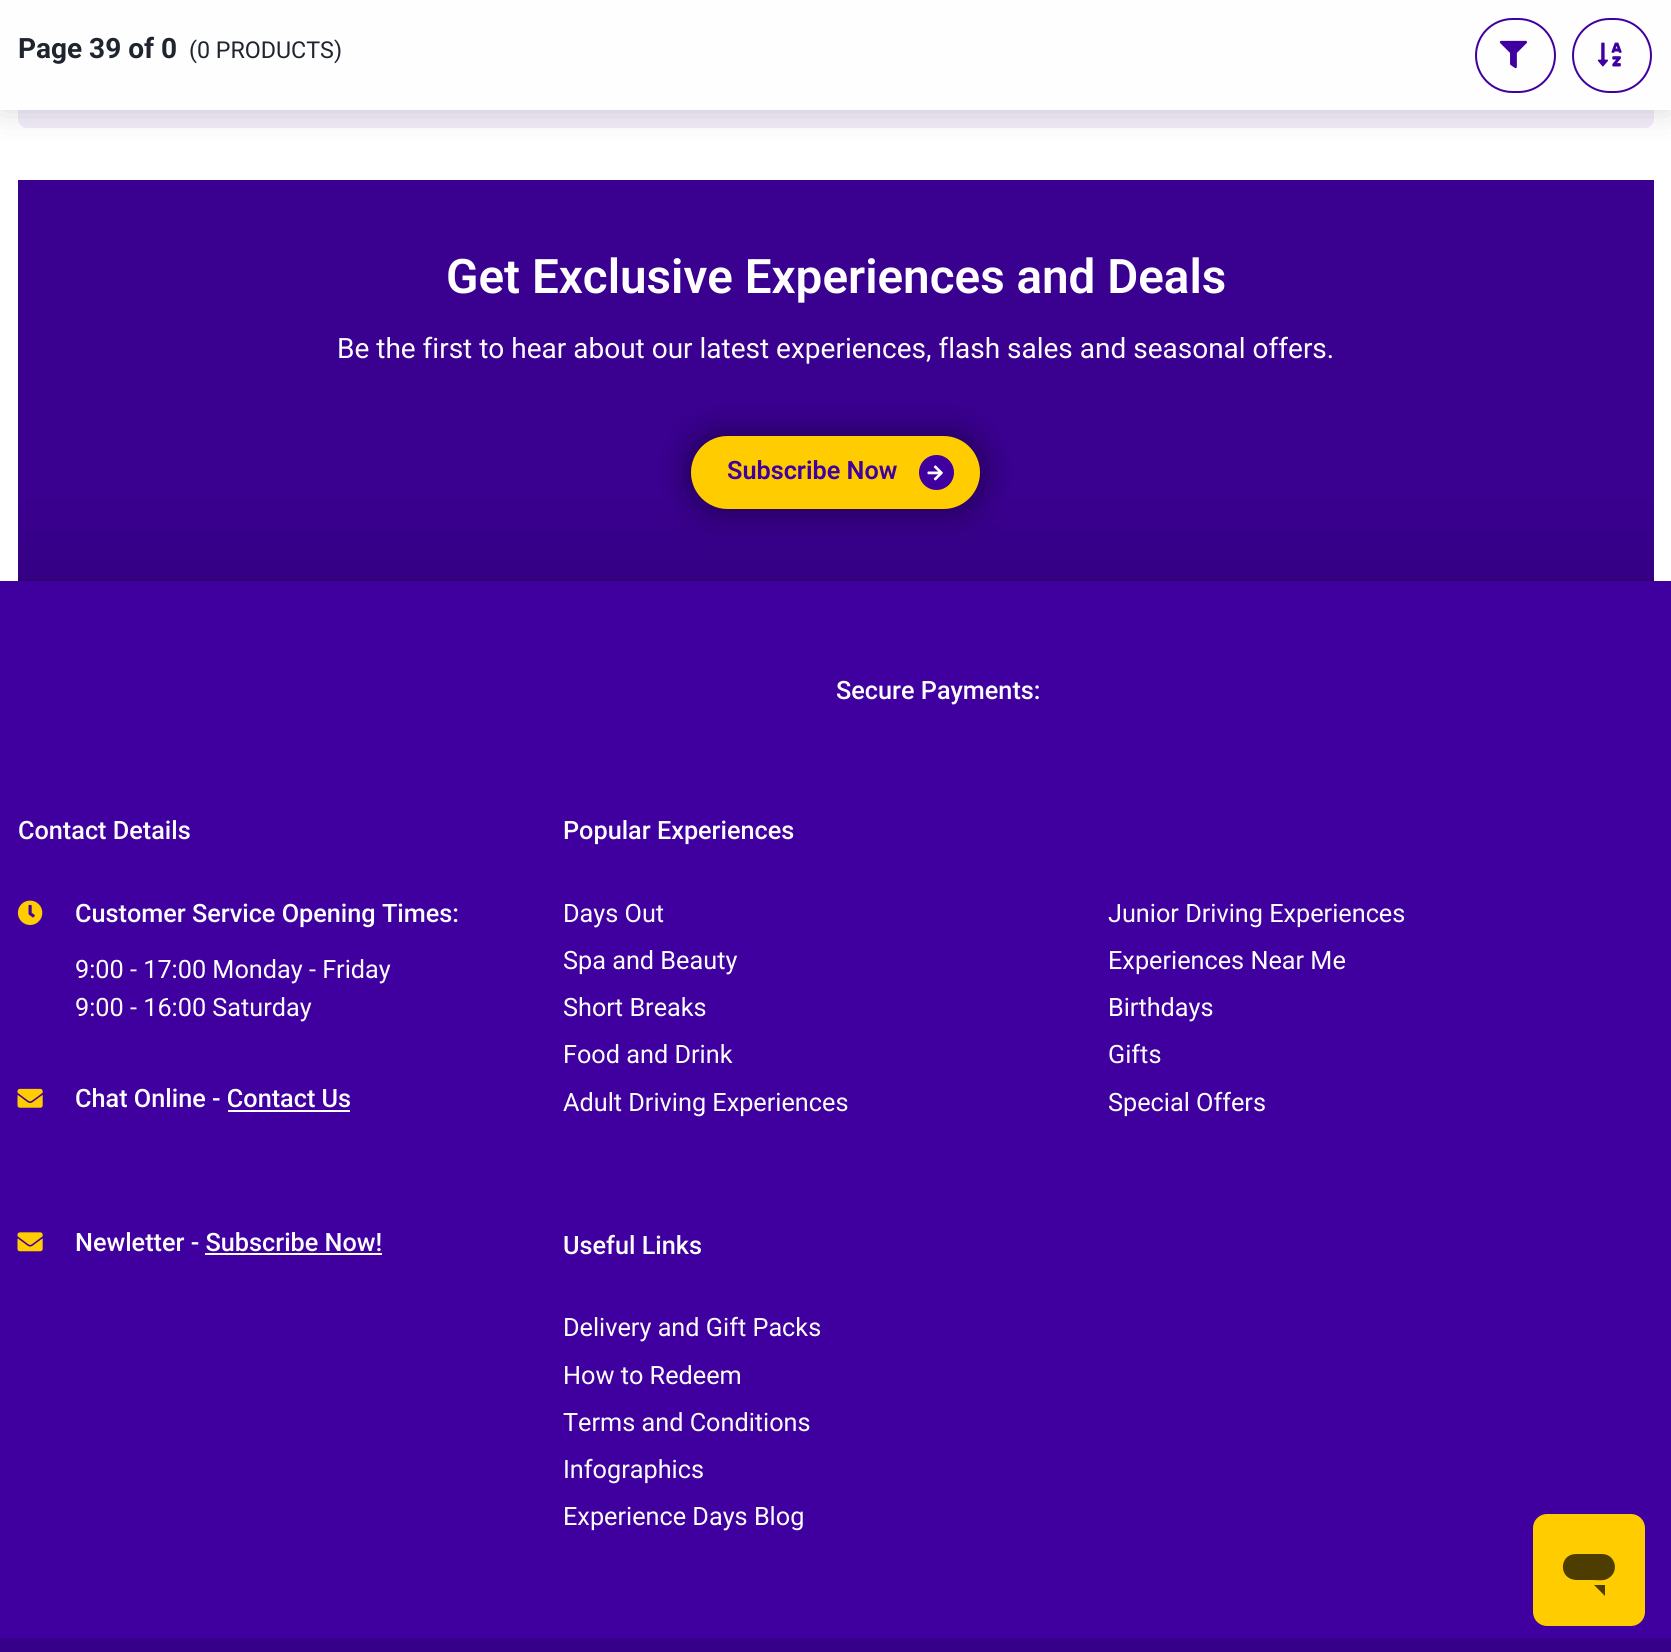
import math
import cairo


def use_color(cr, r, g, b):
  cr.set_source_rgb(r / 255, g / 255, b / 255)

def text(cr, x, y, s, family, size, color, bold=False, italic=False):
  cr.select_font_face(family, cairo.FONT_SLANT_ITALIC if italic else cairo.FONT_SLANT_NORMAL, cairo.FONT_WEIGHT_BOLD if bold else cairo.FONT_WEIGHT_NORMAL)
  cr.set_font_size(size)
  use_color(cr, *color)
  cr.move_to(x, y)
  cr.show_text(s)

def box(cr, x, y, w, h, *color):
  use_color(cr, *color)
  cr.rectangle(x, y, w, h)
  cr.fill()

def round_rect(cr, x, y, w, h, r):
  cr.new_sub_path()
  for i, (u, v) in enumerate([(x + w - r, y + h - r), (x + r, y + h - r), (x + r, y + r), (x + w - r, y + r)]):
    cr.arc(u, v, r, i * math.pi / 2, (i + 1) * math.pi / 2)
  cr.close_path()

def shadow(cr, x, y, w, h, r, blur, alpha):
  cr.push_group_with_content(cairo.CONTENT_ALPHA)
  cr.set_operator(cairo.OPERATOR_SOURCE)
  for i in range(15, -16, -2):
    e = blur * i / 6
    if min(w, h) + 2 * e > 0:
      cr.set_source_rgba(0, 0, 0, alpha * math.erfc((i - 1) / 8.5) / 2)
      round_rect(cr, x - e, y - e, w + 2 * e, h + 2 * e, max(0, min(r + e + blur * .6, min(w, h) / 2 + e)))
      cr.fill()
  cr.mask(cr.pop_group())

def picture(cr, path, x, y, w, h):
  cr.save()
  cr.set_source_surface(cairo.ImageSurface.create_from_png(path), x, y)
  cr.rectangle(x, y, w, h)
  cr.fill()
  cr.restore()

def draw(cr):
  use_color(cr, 255, 255, 255)
  cr.paint()
  use_color(cr, 240, 235, 248)
  round_rect(cr, 18, -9, 1636, 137, 9)
  cr.fill()
  use_color(cr, 0, 0, 0)
  shadow(cr, 0, 0, 1671, 110, 0, 17.5, 0.15)
  box(cr, 0, 0, 1671, 110, 254, 254, 254)
  round_rect(cr, 1476, 19, 79, 73, 36.5)
  use_color(cr, 64, 0, 160)
  cr.stroke()
  picture(cr, "img_01.png", 1499, 40, 29, 29)
  round_rect(cr, 1573, 19, 78, 73, 36.5)
  cr.stroke()
  picture(cr, "img_02.png", 1597, 42, 25, 25)
  box(cr, 18, 579, 1636, 2, 45, 0, 112)
  box(cr, 18, 180, 1636, 312, 58, 0, 144)
  gradient = cairo.LinearGradient(836, 492, 836, 579)
  gradient.add_color_stop_rgba(0, 0.227, 0, 0.565, 1)
  gradient.add_color_stop_rgba(1, 0.208, 0, 0.518, 1)
  cr.set_source(gradient)
  cr.rectangle(18, 492, 1636, 87)
  cr.fill()
  use_color(cr, 0, 0, 0)
  shadow(cr, 691, 436, 289, 73, 36.5, 17.5, 0.5)
  use_color(cr, 255, 204, 0)
  round_rect(cr, 691, 436, 289, 73, 36.5)
  cr.fill()
  use_color(cr, 64, 0, 160)
  cr.arc(936.5, 472.5, 17.5, 0, 2 * math.pi)
  cr.fill()
  picture(cr, "img_03.png", 927, 465, 16, 16)
  box(cr, 0, 581, 1671, 1057, 64, 0, 160)
  picture(cr, "img_04.png", 17, 900, 26, 25)
  picture(cr, "img_05.png", 17, 1088, 26, 20)
  box(cr, 228, 1110, 122, 2, 254, 254, 254)
  picture(cr, "img_06.png", 17, 1232, 26, 20)
  box(cr, 205, 1253, 177, 2, 254, 254, 254)
  box(cr, 0, 1638, 1671, 14, 54, 0, 136)
  use_color(cr, 255, 204, 0)
  round_rect(cr, 1533, 1514, 112, 112, 14)
  cr.fill()
  use_color(cr, 77, 61, 0)
  cr.new_path()
  cr.move_to(1594, 1585)
  cr.line_to(1605, 1596)
  cr.line_to(1605, 1585)
  cr.close_path()
  cr.move_to(1576, 1554)
  cr.curve_to(1559, 1554, 1558, 1579, 1576, 1580)
  cr.line_to(1593, 1580)
  cr.curve_to(1598, 1580, 1603, 1581, 1607, 1579)
  cr.curve_to(1620, 1573, 1616, 1554, 1602, 1554)
  cr.close_path()
  cr.fill()
  text(cr, 18, 58, "Page 39 of 0", "Roboto", 28, (31, 36, 46), bold=True)
  text(cr, 189, 58, "(0 PRODUCTS)", "Roboto", 23.25, (31, 36, 46))
  text(cr, 446, 293, "Get Exclusive Experiences and Deals", "Roboto SemiBold", 47.6, (254, 254, 254))
  text(cr, 337, 358, "Be the first to hear about our latest experiences, flash sales and seasonal offers.", "Roboto", 28, (254, 254, 254))
  text(cr, 727, 479, "Subscribe Now", "Roboto SemiBold", 25.25, (64, 0, 160))
  text(cr, 836, 699, "Secure Payments:", "Roboto Medium", 25.25, (254, 254, 254))
  text(cr, 18, 839, "Contact Details", "Roboto Medium", 25.25, (254, 254, 254))
  text(cr, 75, 922, "Customer Service Opening Times:", "Roboto Medium", 25.25, (254, 254, 254))
  text(cr, 75, 978, "9:00 - 17:00 Monday - Friday", "Roboto", 25.25, (254, 254, 254))
  text(cr, 75, 1016, "9:00 - 16:00 Saturday", "Roboto", 25.25, (254, 254, 254))
  text(cr, 75, 1107, "Chat Online - Contact Us", "Roboto Medium", 25.25, (254, 254, 254))
  text(cr, 75, 1251, "Newletter - Subscribe Now!", "Roboto Medium", 25.25, (254, 254, 254))
  text(cr, 563, 839, "Popular Experiences", "Roboto Medium", 25.25, (254, 254, 254))
  text(cr, 563, 922, "Days Out", "Roboto", 25.25, (254, 254, 254))
  text(cr, 563, 969, "Spa and Beauty", "Roboto", 25.25, (254, 254, 254))
  text(cr, 563, 1016, "Short Breaks", "Roboto", 25.25, (254, 254, 254))
  text(cr, 563, 1063, "Food and Drink", "Roboto", 25.25, (254, 254, 254))
  text(cr, 563, 1111, "Adult Driving Experiences", "Roboto", 25.25, (254, 254, 254))
  text(cr, 1108, 922, "Junior Driving Experiences", "Roboto", 25.25, (254, 254, 254))
  text(cr, 1108, 969, "Experiences Near Me", "Roboto", 25.25, (254, 254, 254))
  text(cr, 1108, 1016, "Birthdays", "Roboto", 25.25, (254, 254, 254))
  text(cr, 1108, 1063, "Gifts", "Roboto", 25.25, (254, 254, 254))
  text(cr, 1108, 1111, "Special Offers", "Roboto", 25.25, (254, 254, 254))
  text(cr, 563, 1254, "Useful Links", "Roboto Medium", 25.25, (254, 254, 254))
  text(cr, 563, 1336, "Delivery and Gift Packs", "Roboto", 25.25, (254, 254, 254))
  text(cr, 563, 1384, "How to Redeem", "Roboto", 25.25, (254, 254, 254))
  text(cr, 563, 1431, "Terms and Conditions", "Roboto", 25.25, (254, 254, 254))
  text(cr, 563, 1478, "Infographics", "Roboto", 25.25, (254, 254, 254))
  text(cr, 563, 1525, "Experience Days Blog", "Roboto", 25.25, (254, 254, 254))


surface = cairo.ImageSurface(cairo.FORMAT_RGB24, 1671, 1652)
cr = cairo.Context(surface)
options = cairo.FontOptions()
options.set_hint_metrics(cairo.HINT_METRICS_OFF)
options.set_hint_style(cairo.HINT_STYLE_NONE)
cr.set_font_options(options)
cr.set_miter_limit(4)
draw(cr)
surface.write_to_png("out.png")
